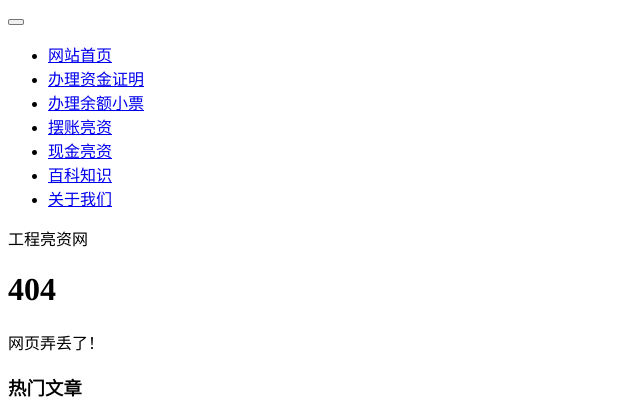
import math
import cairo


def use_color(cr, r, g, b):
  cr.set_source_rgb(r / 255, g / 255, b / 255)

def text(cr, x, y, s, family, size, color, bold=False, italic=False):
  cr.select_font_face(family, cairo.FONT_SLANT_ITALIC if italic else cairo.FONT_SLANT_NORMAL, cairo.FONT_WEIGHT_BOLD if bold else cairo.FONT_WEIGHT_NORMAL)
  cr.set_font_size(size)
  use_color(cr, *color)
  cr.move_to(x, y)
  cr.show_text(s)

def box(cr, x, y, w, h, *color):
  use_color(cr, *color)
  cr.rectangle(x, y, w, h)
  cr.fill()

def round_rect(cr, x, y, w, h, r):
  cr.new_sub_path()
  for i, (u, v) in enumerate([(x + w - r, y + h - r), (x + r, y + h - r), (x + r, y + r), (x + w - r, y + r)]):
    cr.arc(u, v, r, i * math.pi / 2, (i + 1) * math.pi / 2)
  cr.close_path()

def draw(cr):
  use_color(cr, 255, 255, 255)
  cr.paint()
  use_color(cr, 239, 239, 239)
  round_rect(cr, 8.5, 19.5, 15, 5, 1.5)
  cr.fill_preserve()
  use_color(cr, 118, 118, 118)
  cr.set_line_width(1)
  cr.stroke()
  use_color(cr, 0, 0, 0)
  cr.arc(34.5, 56.5, 2.5, 0, 2 * math.pi)
  cr.fill()
  box(cr, 48, 62, 64, 1, 0, 0, 238)
  use_color(cr, 0, 0, 0)
  cr.arc(34.5, 80.5, 2.5, 0, 2 * math.pi)
  cr.fill()
  box(cr, 48, 86, 96, 1, 0, 0, 238)
  use_color(cr, 0, 0, 0)
  cr.arc(34.5, 104.5, 2.5, 0, 2 * math.pi)
  cr.fill()
  box(cr, 48, 110, 96, 1, 0, 0, 238)
  use_color(cr, 0, 0, 0)
  cr.arc(34.5, 128.5, 2.5, 0, 2 * math.pi)
  cr.fill()
  box(cr, 48, 134, 64, 1, 0, 0, 238)
  use_color(cr, 0, 0, 0)
  cr.arc(34.5, 152.5, 2.5, 0, 2 * math.pi)
  cr.fill()
  box(cr, 48, 158, 64, 1, 0, 0, 238)
  use_color(cr, 0, 0, 0)
  cr.arc(34.5, 176.5, 2.5, 0, 2 * math.pi)
  cr.fill()
  box(cr, 48, 182, 64, 1, 0, 0, 238)
  use_color(cr, 0, 0, 0)
  cr.arc(34.5, 200.5, 2.5, 0, 2 * math.pi)
  cr.fill()
  box(cr, 48, 206, 64, 1, 0, 0, 238)
  text(cr, 48, 61, "网站首页", "Noto Sans CJK SC", 16, (0, 0, 238))
  text(cr, 48, 85, "办理资金证明", "Noto Sans CJK SC", 16, (0, 0, 238))
  text(cr, 48, 109, "办理余额小票", "Noto Sans CJK SC", 16, (0, 0, 238))
  text(cr, 48, 133, "摆账亮资", "Noto Sans CJK SC", 16, (0, 0, 238))
  text(cr, 48, 157, "现金亮资", "Noto Sans CJK SC", 16, (0, 0, 238))
  text(cr, 48, 181, "百科知识", "Noto Sans CJK SC", 16, (0, 0, 238))
  text(cr, 48, 205, "关于我们", "Noto Sans CJK SC", 16, (0, 0, 238))
  text(cr, 8, 245, "工程亮资网", "Noto Sans CJK SC", 16, (0, 0, 0))
  text(cr, 8, 300, "404", "Liberation Serif", 32, (0, 0, 0), bold=True)
  text(cr, 8, 349, "网页弄丢了！", "Noto Sans CJK SC", 16, (0, 0, 0))
  text(cr, 8, 395, "热门文章", "Noto Sans CJK SC", 18.5, (0, 0, 0), bold=True)


surface = cairo.ImageSurface(cairo.FORMAT_RGB24, 644, 403)
cr = cairo.Context(surface)
options = cairo.FontOptions()
options.set_hint_metrics(cairo.HINT_METRICS_OFF)
options.set_hint_style(cairo.HINT_STYLE_NONE)
cr.set_font_options(options)
cr.set_miter_limit(4)
draw(cr)
surface.write_to_png("out.png")
